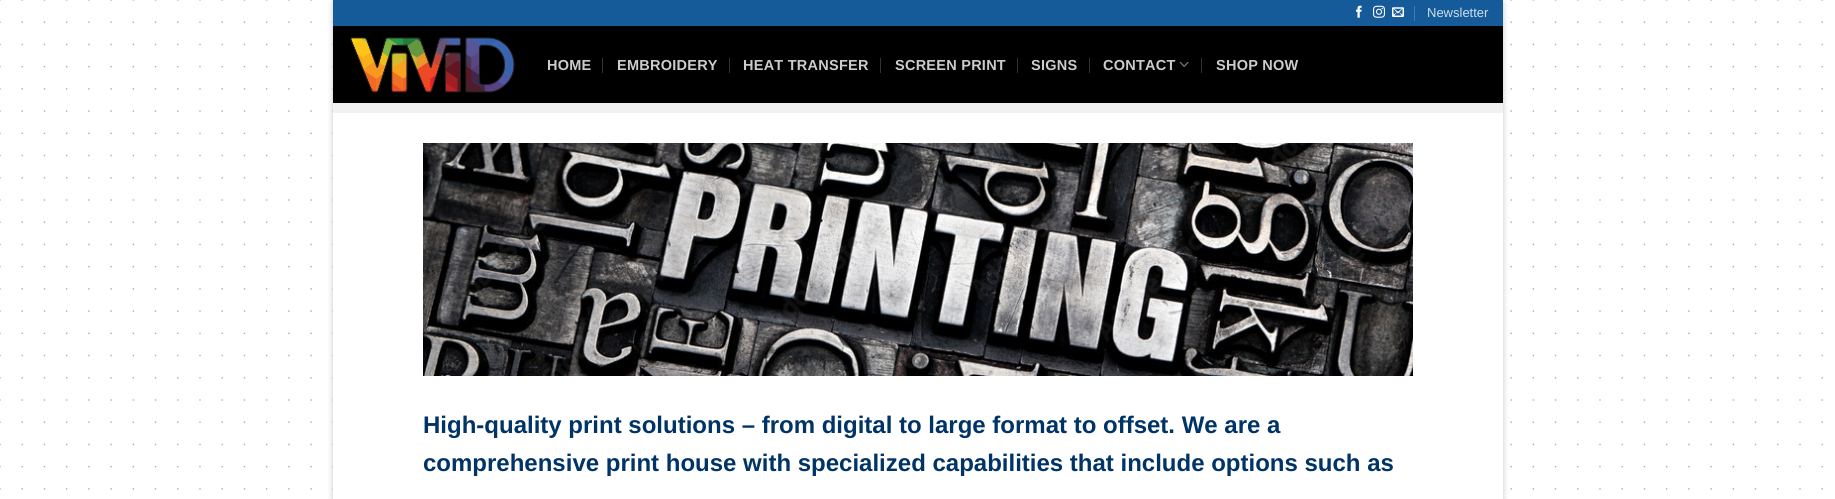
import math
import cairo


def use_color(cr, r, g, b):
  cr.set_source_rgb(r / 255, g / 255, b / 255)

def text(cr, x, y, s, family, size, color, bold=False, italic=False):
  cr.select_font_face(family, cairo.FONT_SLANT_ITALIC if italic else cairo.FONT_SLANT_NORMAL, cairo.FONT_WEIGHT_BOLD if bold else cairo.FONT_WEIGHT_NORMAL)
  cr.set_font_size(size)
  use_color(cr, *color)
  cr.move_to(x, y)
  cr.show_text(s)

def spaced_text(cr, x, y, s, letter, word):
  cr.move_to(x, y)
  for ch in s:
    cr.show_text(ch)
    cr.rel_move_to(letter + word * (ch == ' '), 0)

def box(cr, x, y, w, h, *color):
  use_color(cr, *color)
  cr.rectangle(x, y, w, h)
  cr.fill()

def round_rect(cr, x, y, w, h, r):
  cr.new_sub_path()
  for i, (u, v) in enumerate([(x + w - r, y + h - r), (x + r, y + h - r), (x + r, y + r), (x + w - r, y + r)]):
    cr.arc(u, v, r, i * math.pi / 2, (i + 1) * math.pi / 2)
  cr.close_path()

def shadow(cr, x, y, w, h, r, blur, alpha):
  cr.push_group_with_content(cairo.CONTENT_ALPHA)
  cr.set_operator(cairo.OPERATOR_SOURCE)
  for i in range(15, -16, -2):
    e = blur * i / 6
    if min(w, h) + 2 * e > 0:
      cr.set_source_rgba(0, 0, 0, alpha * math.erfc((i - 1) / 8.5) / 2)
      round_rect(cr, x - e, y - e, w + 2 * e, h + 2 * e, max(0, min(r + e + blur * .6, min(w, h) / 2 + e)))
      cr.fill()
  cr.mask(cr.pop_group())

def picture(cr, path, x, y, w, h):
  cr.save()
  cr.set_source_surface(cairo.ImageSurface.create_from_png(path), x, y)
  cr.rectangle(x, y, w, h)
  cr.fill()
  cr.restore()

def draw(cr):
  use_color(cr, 255, 255, 255)
  cr.paint()
  picture(cr, "img_01.png", 0, 0, 1835, 499)
  use_color(cr, 0, 0, 0)
  shadow(cr, 333, 3, 1170, 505, 0, 3, 0.23)
  box(cr, 333, 113, 1170, 386, 255, 255, 255)
  box(cr, 333, 0, 1170, 26, 21, 91, 153)
  picture(cr, "img_02.png", 1356, 5, 6, 13)
  picture(cr, "img_03.png", 1373, 5, 12, 13)
  picture(cr, "img_04.png", 1392, 7, 12, 10)
  box(cr, 1414, 6, 1, 15, 68, 124, 173)
  box(cr, 333, 26, 1170, 77, 0, 0, 0)
  picture(cr, "img_05.png", 350, 37, 165, 56)
  box(cr, 602, 58, 1, 15, 51, 51, 51)
  box(cr, 729, 58, 1, 15, 51, 51, 51)
  box(cr, 880, 58, 1, 15, 51, 51, 51)
  box(cr, 1017, 58, 1, 15, 51, 51, 51)
  box(cr, 1089, 58, 1, 15, 51, 51, 51)
  picture(cr, "img_06.png", 1179, 61, 10, 6)
  box(cr, 1201, 58, 1, 15, 51, 51, 51)
  box(cr, 333, 103, 1170, 10, 241, 241, 241)
  picture(cr, "img_07.png", 423, 143, 990, 233)
  text(cr, 1427, 17, "Newsletter", "Liberation Sans", 13, (208, 222, 235))
  cr.select_font_face("Liberation Sans", cairo.FONT_SLANT_NORMAL, cairo.FONT_WEIGHT_BOLD)
  cr.set_font_size(14.5)
  use_color(cr, 204, 204, 204)
  spaced_text(cr, 547, 70, "HOME", 0.25, 0)
  spaced_text(cr, 617, 70, "EMBROIDERY", 0.25, 0)
  spaced_text(cr, 743, 70, "HEAT TRANSFER", 0.25, 0)
  spaced_text(cr, 895, 70, "SCREEN PRINT", 0.25, 0)
  spaced_text(cr, 1031, 70, "SIGNS", 0.25, 0)
  spaced_text(cr, 1103, 70, "CONTACT", 0.25, 0)
  spaced_text(cr, 1216, 70, "SHOP NOW", 0.25, 0)
  text(cr, 423, 433, "High-quality print solutions – from digital to large format to offset. We are a", "Liberation Sans", 24, (0, 51, 102), bold=True)
  text(cr, 423, 471, "comprehensive print house with specialized capabilities that include options such as", "Liberation Sans", 24, (0, 51, 102), bold=True)


surface = cairo.ImageSurface(cairo.FORMAT_RGB24, 1835, 499)
cr = cairo.Context(surface)
options = cairo.FontOptions()
options.set_hint_metrics(cairo.HINT_METRICS_OFF)
options.set_hint_style(cairo.HINT_STYLE_NONE)
cr.set_font_options(options)
cr.set_miter_limit(4)
draw(cr)
surface.write_to_png("out.png")
